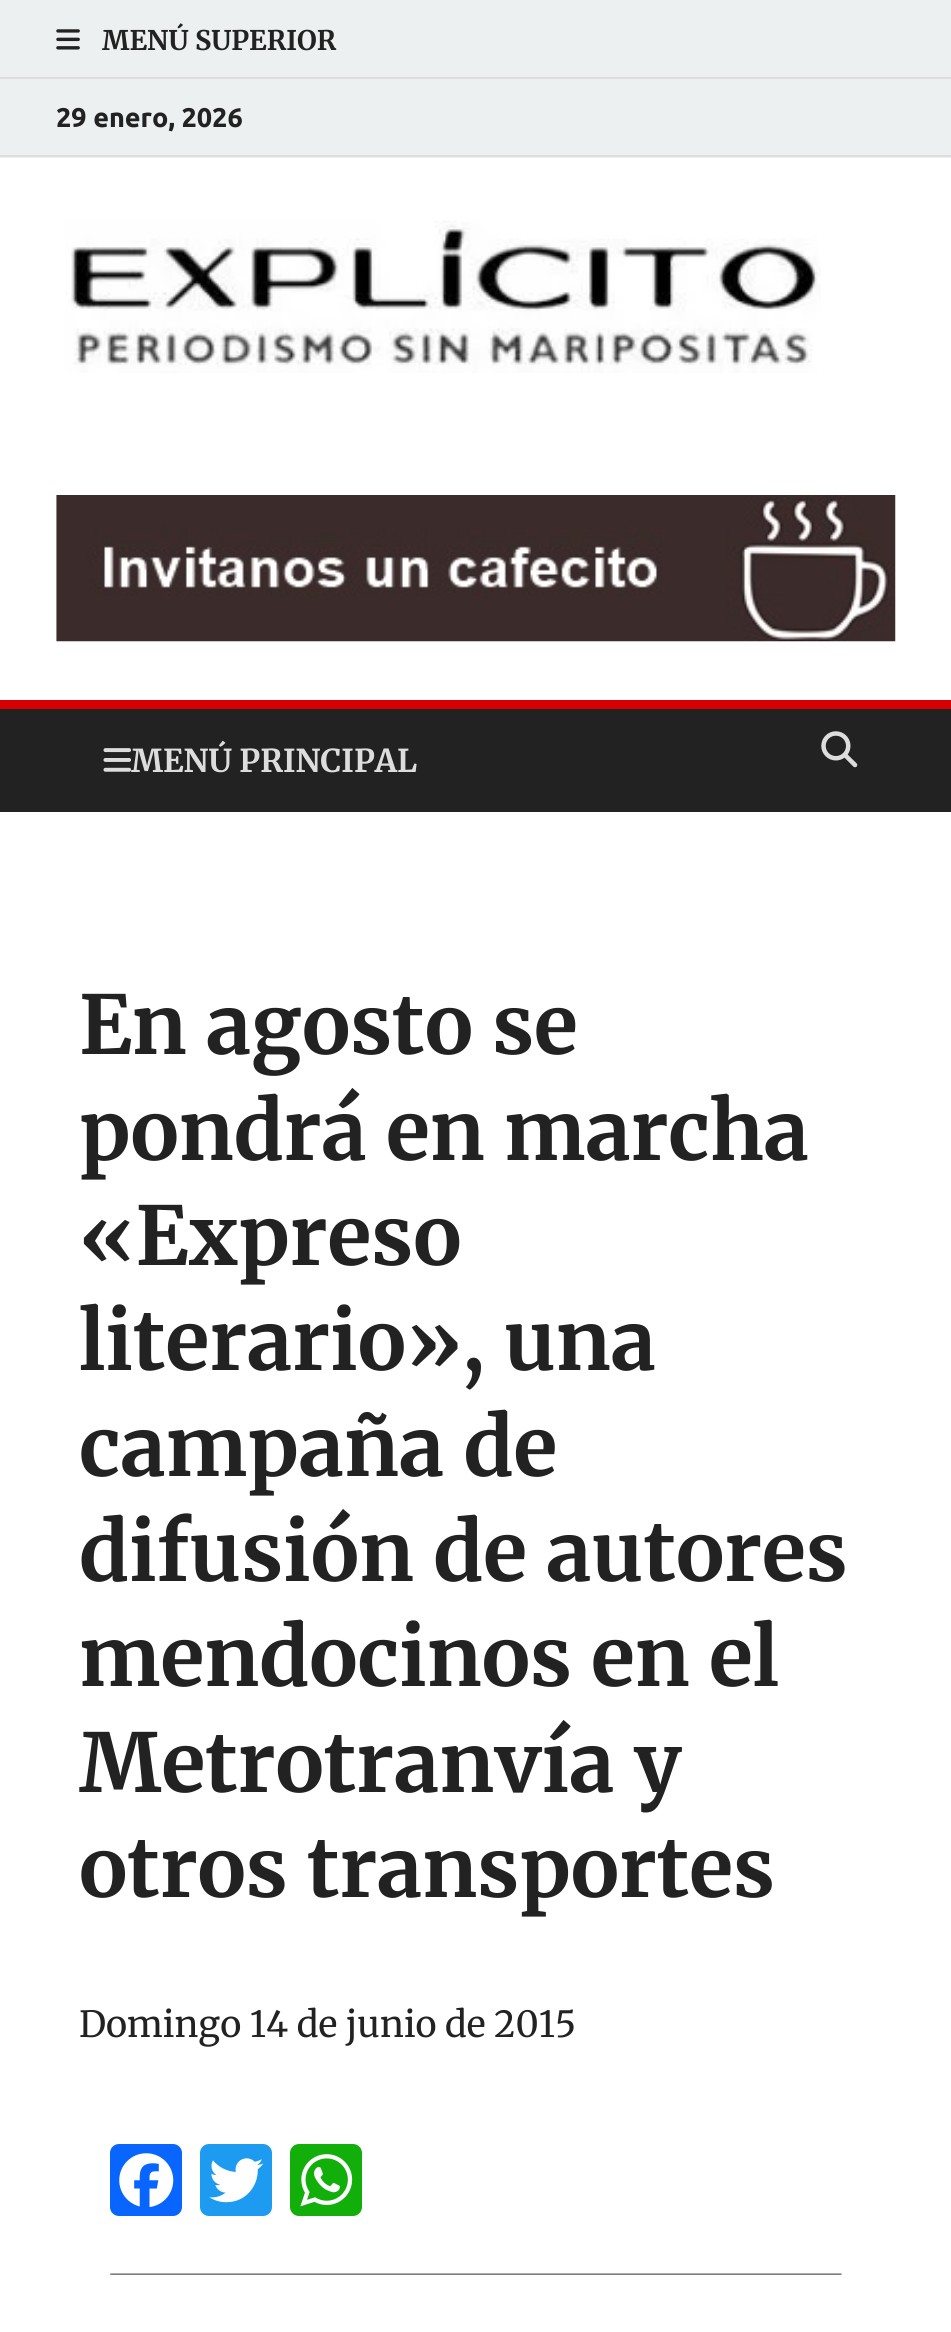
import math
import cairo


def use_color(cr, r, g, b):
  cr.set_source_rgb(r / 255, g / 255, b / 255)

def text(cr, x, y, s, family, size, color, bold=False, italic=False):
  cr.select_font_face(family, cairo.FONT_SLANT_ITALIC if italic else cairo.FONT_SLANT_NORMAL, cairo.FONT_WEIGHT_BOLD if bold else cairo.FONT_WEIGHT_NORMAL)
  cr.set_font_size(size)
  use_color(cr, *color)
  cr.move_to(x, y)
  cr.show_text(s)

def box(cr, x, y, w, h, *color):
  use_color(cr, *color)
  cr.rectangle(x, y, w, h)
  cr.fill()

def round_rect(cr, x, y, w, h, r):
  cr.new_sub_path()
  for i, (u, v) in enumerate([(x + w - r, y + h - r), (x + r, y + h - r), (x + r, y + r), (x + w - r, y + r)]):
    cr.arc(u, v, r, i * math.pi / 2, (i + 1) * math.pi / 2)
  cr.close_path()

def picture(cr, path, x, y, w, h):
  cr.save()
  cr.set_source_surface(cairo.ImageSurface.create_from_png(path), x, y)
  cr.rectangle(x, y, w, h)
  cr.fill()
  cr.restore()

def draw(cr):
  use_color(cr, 255, 255, 255)
  cr.paint()
  box(cr, 0, 0, 951, 77, 236, 240, 241)
  box(cr, 0, 77, 951, 2, 221, 221, 221)
  picture(cr, "img_01.png", 56, 29, 24, 21)
  box(cr, 0, 79, 951, 79, 236, 240, 241)
  box(cr, 0, 155, 951, 2, 221, 221, 221)
  picture(cr, "img_02.png", 65, 220, 756, 153)
  picture(cr, "img_03.png", 56, 495, 840, 147)
  box(cr, 0, 709, 951, 103, 34, 34, 34)
  box(cr, 0, 700, 951, 9, 214, 0, 0)
  picture(cr, "img_04.png", 821, 731, 37, 37)
  picture(cr, "img_05.png", 103, 748, 28, 24)
  use_color(cr, 8, 102, 255)
  round_rect(cr, 110, 2144, 72, 72, 9)
  cr.fill()
  picture(cr, "img_06.png", 119, 2153, 55, 54)
  use_color(cr, 29, 155, 240)
  round_rect(cr, 200, 2144, 72, 72, 9)
  cr.fill()
  picture(cr, "img_07.png", 209, 2158, 55, 45)
  use_color(cr, 18, 175, 10)
  round_rect(cr, 290, 2144, 72, 72, 9)
  cr.fill()
  picture(cr, "img_08.png", 300, 2154, 53, 53)
  picture(cr, "img_09.png", 110, 2273, 732, 2)
  text(cr, 102, 50, "MENÚ SUPERIOR", "Merriweather", 27, (34, 34, 34), bold=True)
  text(cr, 56, 127, "29 enero, 2026", "Ubuntu", 27, (34, 34, 34), bold=True)
  text(cr, 131, 772, "MENÚ PRINCIPAL", "Merriweather", 31.5, (221, 221, 221), bold=True)
  text(cr, 79, 1054, "En agosto se", "Merriweather", 81, (34, 34, 34), bold=True)
  text(cr, 79, 1160, "pondrá en marcha", "Merriweather", 81, (34, 34, 34), bold=True)
  text(cr, 79, 1265, "«Expreso", "Merriweather", 81, (34, 34, 34), bold=True)
  text(cr, 79, 1370, "literario», una", "Merriweather", 81, (34, 34, 34), bold=True)
  text(cr, 79, 1476, "campaña de", "Merriweather", 81, (34, 34, 34), bold=True)
  text(cr, 79, 1581, "difusión de autores", "Merriweather", 81, (34, 34, 34), bold=True)
  text(cr, 79, 1686, "mendocinos en el", "Merriweather", 81, (34, 34, 34), bold=True)
  text(cr, 79, 1792, "Metrotranvía y", "Merriweather", 81, (34, 34, 34), bold=True)
  text(cr, 79, 1897, "otros transportes", "Merriweather", 81, (34, 34, 34), bold=True)
  text(cr, 79, 2037, "Domingo 14 de junio de 2015", "Merriweather", 36, (34, 34, 34))


surface = cairo.ImageSurface(cairo.FORMAT_RGB24, 951, 2332)
cr = cairo.Context(surface)
options = cairo.FontOptions()
options.set_hint_metrics(cairo.HINT_METRICS_OFF)
options.set_hint_style(cairo.HINT_STYLE_NONE)
cr.set_font_options(options)
cr.set_miter_limit(4)
draw(cr)
surface.write_to_png("out.png")
